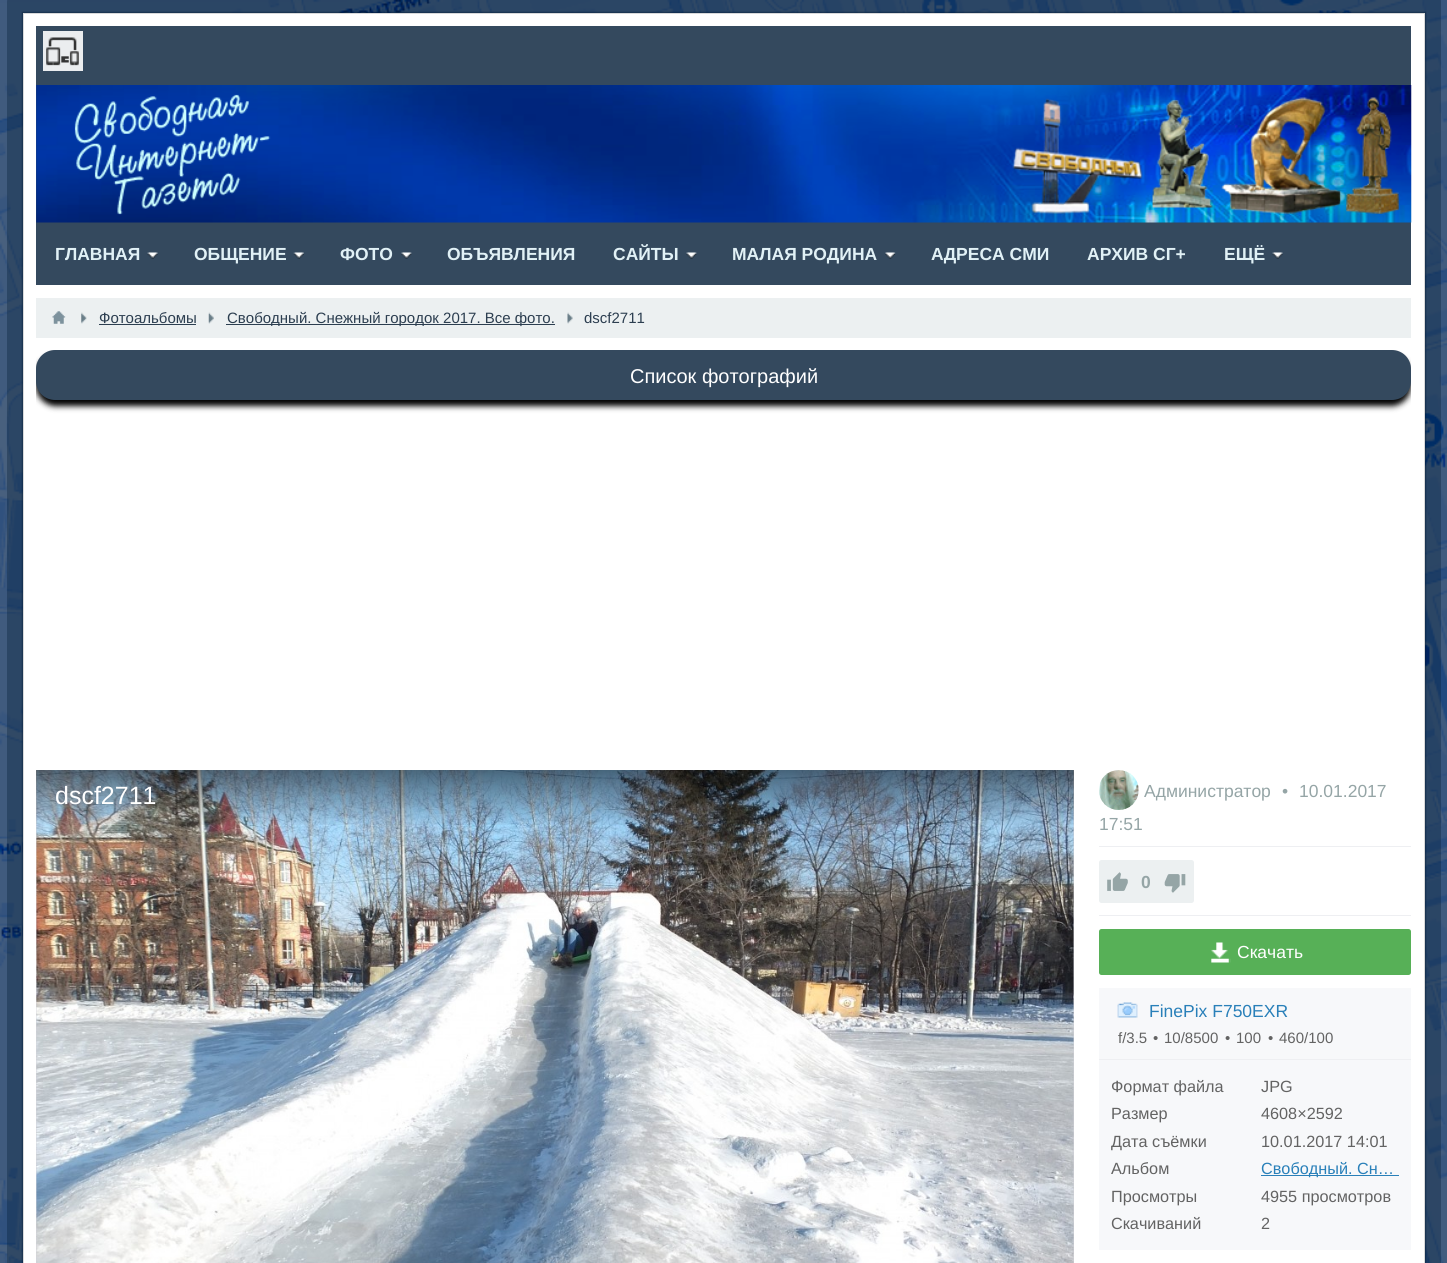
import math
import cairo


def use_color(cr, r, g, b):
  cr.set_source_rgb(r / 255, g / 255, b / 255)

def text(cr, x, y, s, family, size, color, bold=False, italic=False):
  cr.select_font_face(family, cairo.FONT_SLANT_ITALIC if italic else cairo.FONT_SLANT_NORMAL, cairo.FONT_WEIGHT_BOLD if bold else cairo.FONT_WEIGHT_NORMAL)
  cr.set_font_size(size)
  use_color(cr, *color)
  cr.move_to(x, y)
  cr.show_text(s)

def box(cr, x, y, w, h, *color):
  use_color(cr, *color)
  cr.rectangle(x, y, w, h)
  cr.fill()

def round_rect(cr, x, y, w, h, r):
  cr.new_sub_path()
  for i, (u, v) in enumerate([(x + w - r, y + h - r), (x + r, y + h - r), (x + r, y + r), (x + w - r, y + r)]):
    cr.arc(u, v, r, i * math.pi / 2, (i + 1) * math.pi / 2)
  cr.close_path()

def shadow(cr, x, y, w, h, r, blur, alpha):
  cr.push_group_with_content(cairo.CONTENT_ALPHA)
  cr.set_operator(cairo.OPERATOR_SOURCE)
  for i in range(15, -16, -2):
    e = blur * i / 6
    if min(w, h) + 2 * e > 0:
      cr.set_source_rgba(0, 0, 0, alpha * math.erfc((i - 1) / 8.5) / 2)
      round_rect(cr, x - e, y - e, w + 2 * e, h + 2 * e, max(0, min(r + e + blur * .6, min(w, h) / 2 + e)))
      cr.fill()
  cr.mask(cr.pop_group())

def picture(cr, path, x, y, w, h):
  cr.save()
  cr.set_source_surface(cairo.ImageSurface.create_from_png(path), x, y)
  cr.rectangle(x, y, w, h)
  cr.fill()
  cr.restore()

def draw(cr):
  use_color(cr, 255, 255, 255)
  cr.paint()
  picture(cr, "img_01.png", 0, 0, 1447, 1263)
  use_color(cr, 0, 25, 50)
  shadow(cr, -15, -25, 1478, 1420, 0, 44, 1)
  use_color(cr, 255, 255, 255)
  cr.rectangle(23.5, 13.5, 1401, 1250)
  cr.fill_preserve()
  use_color(cr, 216, 217, 218)
  cr.set_line_width(1)
  cr.stroke()
  box(cr, 36, 26, 1375, 259, 52, 73, 94)
  picture(cr, "img_02.png", 36, 85, 1376, 138)
  box(cr, 43, 31, 40, 40, 235, 237, 239)
  picture(cr, "img_03.png", 46, 37, 33, 29)
  picture(cr, "img_04.png", 74, 94, 197, 121)
  picture(cr, "img_05.png", 1012, 98, 131, 116)
  picture(cr, "img_06.png", 1152, 99, 61, 109)
  picture(cr, "img_07.png", 1221, 97, 121, 117)
  picture(cr, "img_08.png", 1346, 97, 53, 117)
  picture(cr, "img_09.png", 147, 252, 11, 7)
  picture(cr, "img_10.png", 293, 252, 11, 7)
  picture(cr, "img_11.png", 401, 252, 11, 7)
  picture(cr, "img_11.png", 686, 252, 11, 7)
  picture(cr, "img_12.png", 885, 252, 11, 7)
  picture(cr, "img_09.png", 1272, 252, 11, 7)
  box(cr, 36, 298, 1375, 40, 236, 240, 241)
  picture(cr, "img_13.png", 52, 311, 14, 13)
  picture(cr, "img_14.png", 81, 312, 6, 12)
  box(cr, 99, 324, 97, 1, 44, 62, 80)
  picture(cr, "img_15.png", 208, 312, 6, 12)
  box(cr, 226, 324, 329, 1, 44, 62, 80)
  picture(cr, "img_16.png", 567, 312, 6, 12)
  cr.save()
  cr.rectangle(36, 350, 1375, 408)
  cr.clip()
  use_color(cr, 0, 0, 0)
  shadow(cr, 36, 356, 1375, 50, 19, 3, 1)
  cr.restore()
  use_color(cr, 52, 73, 94)
  round_rect(cr, 36, 350, 1375, 50, 19)
  cr.fill()
  cr.save()
  cr.rectangle(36, 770, 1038, 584)
  cr.clip()
  use_color(cr, 0, 0, 30)
  shadow(cr, 36, 771, 1038, 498, 0, 2, 0.3)
  cr.restore()
  picture(cr, "img_17.png", 36, 770, 1038, 493)
  picture(cr, "img_18.png", 1031, 783, 23, 24)
  gradient = cairo.LinearGradient(555, 770, 555, 828)
  gradient.add_color_stop_rgba(0, 0, 0, 0, 0.5)
  gradient.add_color_stop_rgba(1, 0, 0, 0, 0)
  cr.set_source(gradient)
  cr.rectangle(36, 770, 1038, 55)
  cr.fill()
  picture(cr, "img_19.png", 1099, 770, 40, 40)
  box(cr, 1099, 846, 312, 1, 238, 239, 242)
  box(cr, 1099, 915, 312, 1, 238, 239, 242)
  use_color(cr, 236, 240, 241)
  round_rect(cr, 1099, 860, 95, 43, 2.5)
  cr.fill()
  picture(cr, "img_20.png", 1107, 872, 21, 19)
  picture(cr, "img_21.png", 1164, 874, 22, 19)
  use_color(cr, 87, 176, 87)
  round_rect(cr, 1099, 929, 312, 46, 2.5)
  cr.fill()
  picture(cr, "img_22.png", 1211, 942, 20, 21)
  box(cr, 1099, 988, 312, 71, 247, 248, 250)
  box(cr, 1099, 1059, 312, 1, 238, 239, 242)
  picture(cr, "img_23.png", 1117, 1002, 21, 16)
  box(cr, 1099, 1060, 312, 190, 247, 248, 250)
  box(cr, 1261, 1175, 138, 1, 41, 128, 185)
  text(cr, 55, 260, "ГЛАВНАЯ", "Liberation Sans", 17.5, (225, 241, 246), bold=True)
  text(cr, 194, 260, "ОБЩЕНИЕ", "Liberation Sans", 17.5, (225, 241, 246), bold=True)
  text(cr, 340, 260, "ФОТО", "Liberation Sans", 17.5, (225, 241, 246), bold=True)
  text(cr, 447, 260, "ОБЪЯВЛЕНИЯ", "Liberation Sans", 17.5, (225, 241, 246), bold=True)
  text(cr, 613, 260, "САЙТЫ", "Liberation Sans", 17.5, (225, 241, 246), bold=True)
  text(cr, 732, 260, "МАЛАЯ РОДИНА", "Liberation Sans", 17.5, (225, 241, 246), bold=True)
  text(cr, 931, 260, "АДРЕСА СМИ", "Liberation Sans", 17.5, (225, 241, 246), bold=True)
  text(cr, 1087, 260, "АРХИВ СГ+", "Liberation Sans", 17.5, (225, 241, 246), bold=True)
  text(cr, 1224, 260, "ЕЩЁ", "Liberation Sans", 17.5, (225, 241, 246), bold=True)
  text(cr, 99, 323, "Фотоальбомы", "Liberation Sans", 15, (44, 62, 80))
  text(cr, 227, 323, "Свободный. Снежный городок 2017. Все фото.", "Liberation Sans", 15, (44, 62, 80))
  text(cr, 584, 323, "dscf2711", "Liberation Sans", 15, (44, 62, 80))
  text(cr, 630, 383, "Список фотографий", "Liberation Sans", 20, (255, 255, 255))
  text(cr, 55, 804, "dscf2711", "Liberation Sans", 25, (255, 255, 255))
  text(cr, 1144, 797, "Администратор", "Liberation Sans", 17.5, (149, 165, 166))
  text(cr, 1282, 797, "•", "Liberation Sans", 17.5, (149, 165, 166))
  text(cr, 1299, 797, "10.01.2017", "Liberation Sans", 17.5, (149, 165, 166))
  text(cr, 1099, 830, "17:51", "Liberation Sans", 17.5, (149, 165, 166))
  text(cr, 1141, 888, "0", "Liberation Sans", 17.5, (149, 165, 166), bold=True)
  text(cr, 1237, 958, "Скачать", "Liberation Sans", 17.5, (255, 255, 255))
  text(cr, 1149, 1017, "FinePix F750EXR", "Liberation Sans", 17.5, (41, 128, 185))
  text(cr, 1118, 1043, "f/3.5", "Liberation Sans", 15, (99, 99, 99))
  text(cr, 1153, 1043, "•", "Liberation Sans", 15, (99, 99, 99))
  text(cr, 1164, 1043, "10/8500", "Liberation Sans", 15, (99, 99, 99))
  text(cr, 1225, 1043, "•", "Liberation Sans", 15, (99, 99, 99))
  text(cr, 1236, 1043, "100", "Liberation Sans", 15, (99, 99, 99))
  text(cr, 1268, 1043, "•", "Liberation Sans", 15, (99, 99, 99))
  text(cr, 1279, 1043, "460/100", "Liberation Sans", 15, (99, 99, 99))
  text(cr, 1111, 1092, "Формат файла", "Liberation Sans", 16.25, (99, 99, 99))
  text(cr, 1261, 1092, "JPG", "Liberation Sans", 16.25, (99, 99, 99))
  text(cr, 1111, 1119, "Размер", "Liberation Sans", 16.25, (99, 99, 99))
  text(cr, 1261, 1119, "4608×2592", "Liberation Sans", 16.25, (99, 99, 99))
  text(cr, 1111, 1147, "Дата съёмки", "Liberation Sans", 16.25, (99, 99, 99))
  text(cr, 1261, 1147, "10.01.2017 14:01", "Liberation Sans", 16.25, (99, 99, 99))
  text(cr, 1111, 1174, "Альбом", "Liberation Sans", 16.25, (99, 99, 99))
  text(cr, 1261, 1174, "Свободный. Сн…", "Liberation Sans", 16.25, (41, 128, 185))
  text(cr, 1111, 1202, "Просмотры", "Liberation Sans", 16.25, (99, 99, 99))
  text(cr, 1261, 1202, "4955 просмотров", "Liberation Sans", 16.25, (99, 99, 99))
  text(cr, 1111, 1229, "Скачиваний", "Liberation Sans", 16.25, (99, 99, 99))
  text(cr, 1261, 1229, "2", "Liberation Sans", 16.25, (99, 99, 99))


surface = cairo.ImageSurface(cairo.FORMAT_RGB24, 1447, 1263)
cr = cairo.Context(surface)
options = cairo.FontOptions()
options.set_hint_metrics(cairo.HINT_METRICS_OFF)
options.set_hint_style(cairo.HINT_STYLE_NONE)
cr.set_font_options(options)
cr.set_miter_limit(4)
draw(cr)
surface.write_to_png("out.png")
